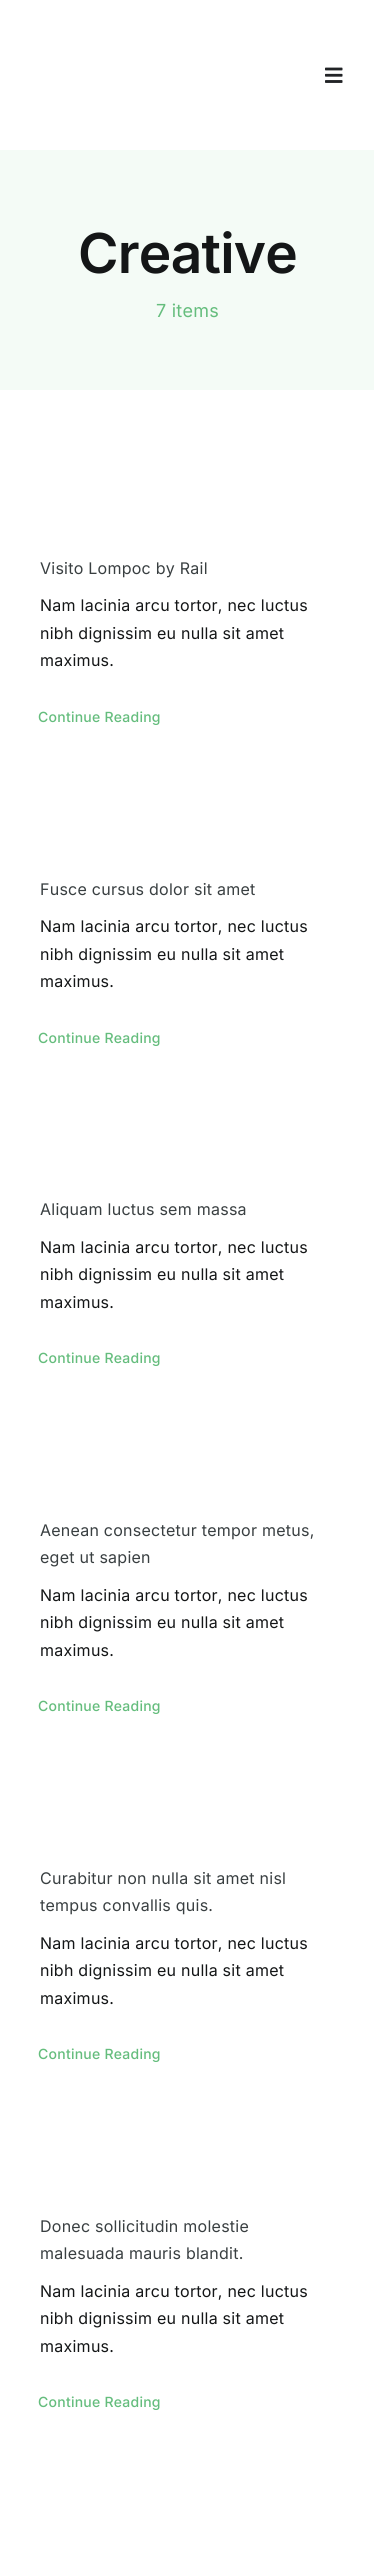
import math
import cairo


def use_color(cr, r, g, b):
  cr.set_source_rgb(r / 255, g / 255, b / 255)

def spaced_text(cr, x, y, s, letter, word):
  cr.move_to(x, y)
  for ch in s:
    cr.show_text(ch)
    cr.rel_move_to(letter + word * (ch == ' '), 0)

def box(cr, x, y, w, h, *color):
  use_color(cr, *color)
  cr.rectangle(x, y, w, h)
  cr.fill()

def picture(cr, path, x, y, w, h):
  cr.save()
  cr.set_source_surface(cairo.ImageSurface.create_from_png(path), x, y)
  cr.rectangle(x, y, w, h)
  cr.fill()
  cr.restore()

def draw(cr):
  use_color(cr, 255, 255, 255)
  cr.paint()
  picture(cr, "img_01.png", 325, 67, 18, 16)
  box(cr, 0, 150, 374, 240, 244, 251, 246)
  cr.select_font_face("Inter SemiBold")
  cr.set_font_size(55)
  use_color(cr, 20, 22, 23)
  spaced_text(cr, 78, 273, "Creative", -0.75, 0)
  cr.select_font_face("Inter")
  cr.set_font_size(18)
  use_color(cr, 101, 189, 125)
  spaced_text(cr, 156, 317, "7 items", 0.25, 0)
  cr.set_font_size(16)
  use_color(cr, 57, 63, 65)
  spaced_text(cr, 40, 574, "Visito Lompoc by Rail", 0.25, 0)
  use_color(cr, 20, 22, 23)
  spaced_text(cr, 40, 611, "Nam lacinia arcu tortor, nec luctus", 0.25, 0)
  spaced_text(cr, 40, 639, "nibh dignissim eu nulla sit amet", 0.25, 0)
  spaced_text(cr, 40, 666, "maximus.", 0.25, 0)
  cr.select_font_face("Inter Medium")
  cr.set_font_size(14)
  use_color(cr, 101, 189, 125)
  spaced_text(cr, 38, 722, "Continue Reading", 0.25, 0)
  cr.select_font_face("Inter")
  cr.set_font_size(16)
  use_color(cr, 57, 63, 65)
  spaced_text(cr, 40, 895, "Fusce cursus dolor sit amet", 0.25, 0)
  use_color(cr, 20, 22, 23)
  spaced_text(cr, 40, 932, "Nam lacinia arcu tortor, nec luctus", 0.25, 0)
  spaced_text(cr, 40, 960, "nibh dignissim eu nulla sit amet", 0.25, 0)
  spaced_text(cr, 40, 987, "maximus.", 0.25, 0)
  cr.select_font_face("Inter Medium")
  cr.set_font_size(14)
  use_color(cr, 101, 189, 125)
  spaced_text(cr, 38, 1043, "Continue Reading", 0.25, 0)
  cr.select_font_face("Inter")
  cr.set_font_size(16)
  use_color(cr, 57, 63, 65)
  spaced_text(cr, 40, 1215, "Aliquam luctus sem massa", 0.25, 0)
  use_color(cr, 20, 22, 23)
  spaced_text(cr, 40, 1253, "Nam lacinia arcu tortor, nec luctus", 0.25, 0)
  spaced_text(cr, 40, 1280, "nibh dignissim eu nulla sit amet", 0.25, 0)
  spaced_text(cr, 40, 1308, "maximus.", 0.25, 0)
  cr.select_font_face("Inter Medium")
  cr.set_font_size(14)
  use_color(cr, 101, 189, 125)
  spaced_text(cr, 38, 1363, "Continue Reading", 0.25, 0)
  cr.select_font_face("Inter")
  cr.set_font_size(16)
  use_color(cr, 57, 63, 65)
  spaced_text(cr, 40, 1536, "Aenean consectetur tempor metus,", 0.25, 0)
  spaced_text(cr, 40, 1563, "eget ut sapien", 0.25, 0)
  use_color(cr, 20, 22, 23)
  spaced_text(cr, 40, 1601, "Nam lacinia arcu tortor, nec luctus", 0.25, 0)
  spaced_text(cr, 40, 1628, "nibh dignissim eu nulla sit amet", 0.25, 0)
  spaced_text(cr, 40, 1656, "maximus.", 0.25, 0)
  cr.select_font_face("Inter Medium")
  cr.set_font_size(14)
  use_color(cr, 101, 189, 125)
  spaced_text(cr, 38, 1711, "Continue Reading", 0.25, 0)
  cr.select_font_face("Inter")
  cr.set_font_size(16)
  use_color(cr, 57, 63, 65)
  spaced_text(cr, 40, 1884, "Curabitur non nulla sit amet nisl", 0.25, 0)
  spaced_text(cr, 40, 1911, "tempus convallis quis.", 0.25, 0)
  use_color(cr, 20, 22, 23)
  spaced_text(cr, 40, 1949, "Nam lacinia arcu tortor, nec luctus", 0.25, 0)
  spaced_text(cr, 40, 1976, "nibh dignissim eu nulla sit amet", 0.25, 0)
  spaced_text(cr, 40, 2004, "maximus.", 0.25, 0)
  cr.select_font_face("Inter Medium")
  cr.set_font_size(14)
  use_color(cr, 101, 189, 125)
  spaced_text(cr, 38, 2059, "Continue Reading", 0.25, 0)
  cr.select_font_face("Inter")
  cr.set_font_size(16)
  use_color(cr, 57, 63, 65)
  spaced_text(cr, 40, 2232, "Donec sollicitudin molestie", 0.25, 0)
  spaced_text(cr, 40, 2259, "malesuada mauris blandit.", 0.25, 0)
  use_color(cr, 20, 22, 23)
  spaced_text(cr, 40, 2297, "Nam lacinia arcu tortor, nec luctus", 0.25, 0)
  spaced_text(cr, 40, 2324, "nibh dignissim eu nulla sit amet", 0.25, 0)
  spaced_text(cr, 40, 2352, "maximus.", 0.25, 0)
  cr.select_font_face("Inter Medium")
  cr.set_font_size(14)
  use_color(cr, 101, 189, 125)
  spaced_text(cr, 38, 2407, "Continue Reading", 0.25, 0)


surface = cairo.ImageSurface(cairo.FORMAT_RGB24, 374, 2567)
cr = cairo.Context(surface)
options = cairo.FontOptions()
options.set_hint_metrics(cairo.HINT_METRICS_OFF)
options.set_hint_style(cairo.HINT_STYLE_NONE)
cr.set_font_options(options)
cr.set_miter_limit(4)
draw(cr)
surface.write_to_png("out.png")
